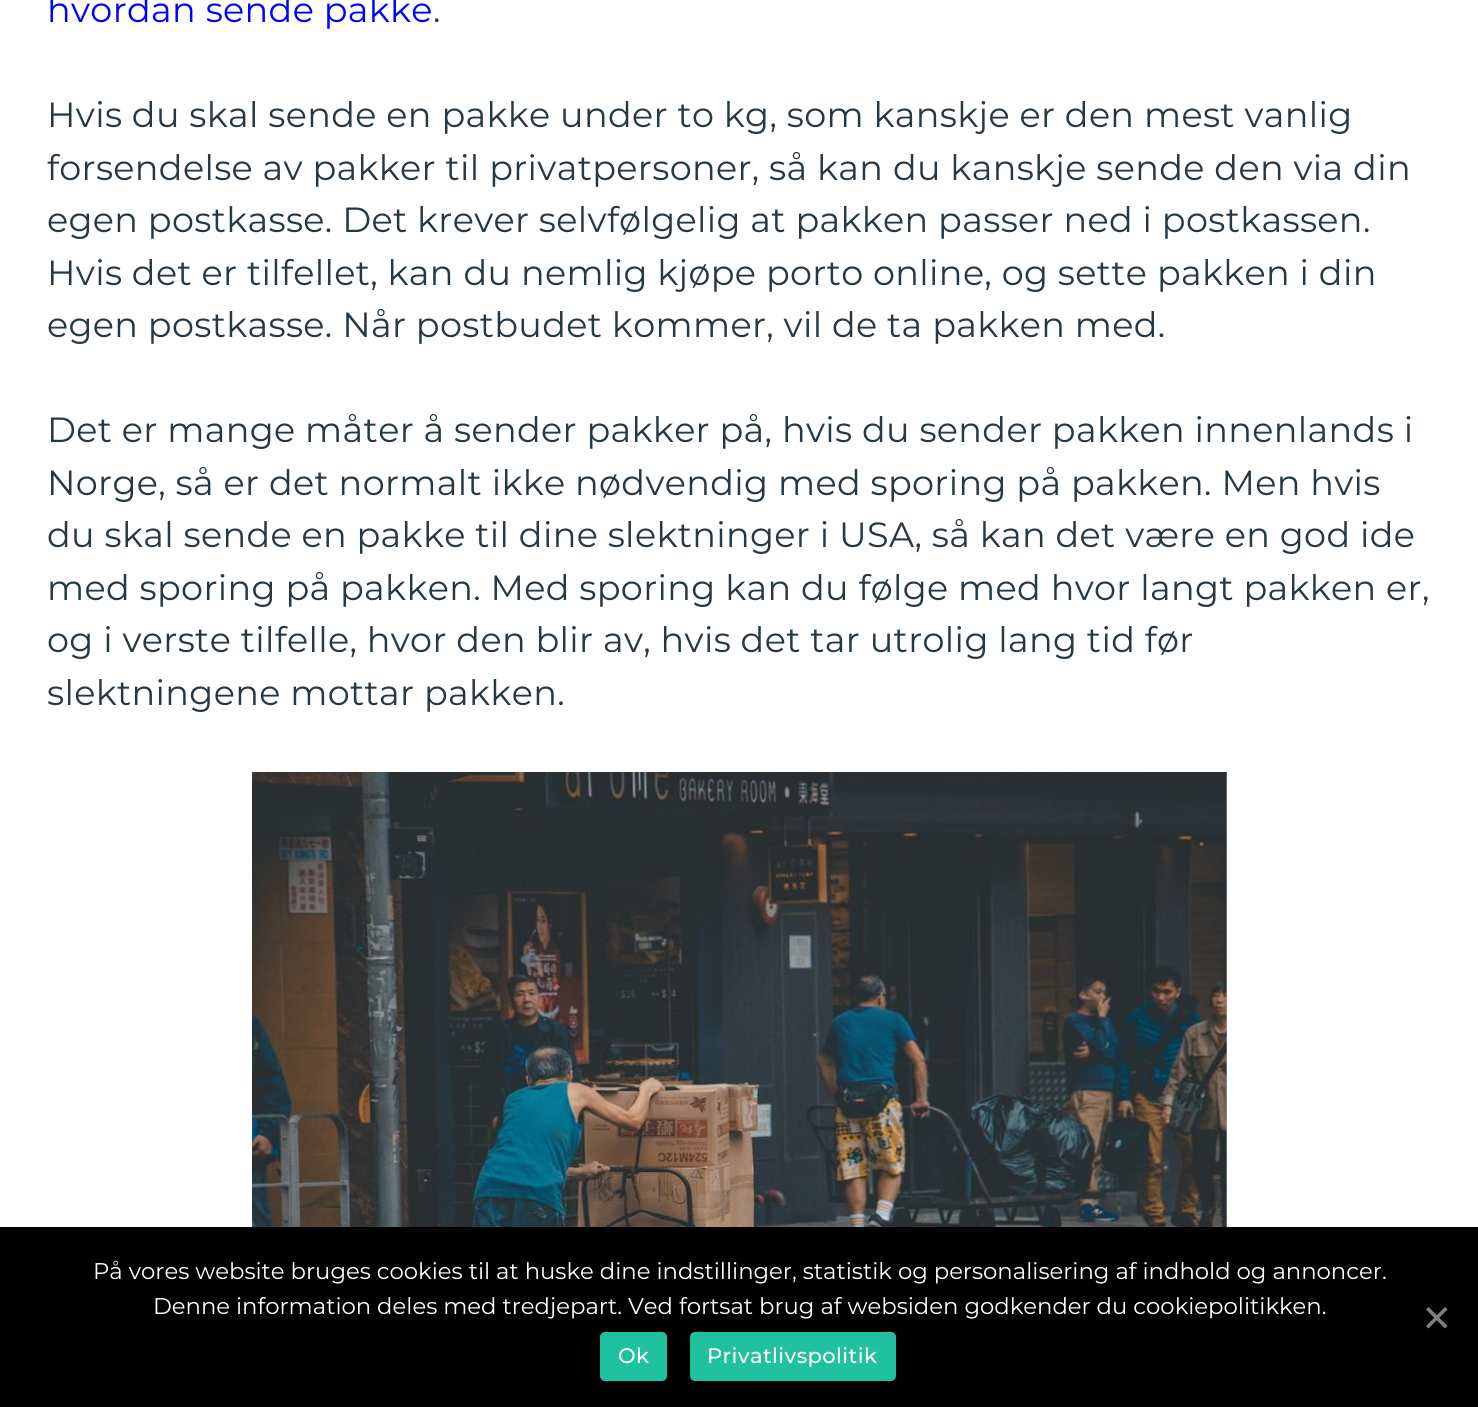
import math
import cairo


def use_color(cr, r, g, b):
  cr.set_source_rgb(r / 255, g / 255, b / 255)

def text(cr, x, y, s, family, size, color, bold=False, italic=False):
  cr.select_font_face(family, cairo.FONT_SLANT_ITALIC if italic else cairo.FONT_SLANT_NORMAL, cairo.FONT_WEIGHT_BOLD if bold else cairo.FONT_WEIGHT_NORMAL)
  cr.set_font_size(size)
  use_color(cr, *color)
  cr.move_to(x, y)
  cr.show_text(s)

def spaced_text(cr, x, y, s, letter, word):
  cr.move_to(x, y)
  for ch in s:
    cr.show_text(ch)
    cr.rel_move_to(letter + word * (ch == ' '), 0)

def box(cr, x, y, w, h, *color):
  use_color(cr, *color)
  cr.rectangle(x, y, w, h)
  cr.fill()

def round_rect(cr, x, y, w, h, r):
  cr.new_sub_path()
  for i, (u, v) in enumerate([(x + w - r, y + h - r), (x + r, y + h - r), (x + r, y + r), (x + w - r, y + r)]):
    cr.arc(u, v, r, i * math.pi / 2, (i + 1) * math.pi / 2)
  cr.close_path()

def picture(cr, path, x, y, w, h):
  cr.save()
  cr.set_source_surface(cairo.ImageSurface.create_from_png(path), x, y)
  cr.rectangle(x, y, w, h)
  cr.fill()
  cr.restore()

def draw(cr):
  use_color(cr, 255, 255, 255)
  cr.paint()
  picture(cr, "img_01.png", 252, 772, 975, 455)
  box(cr, 0, 1227, 1478, 180, 0, 0, 0)
  use_color(cr, 128, 128, 128)
  cr.new_path()
  cr.move_to(1445, 1307)
  cr.line_to(1447.5, 1309.5)
  cr.line_to(1428.5, 1328.5)
  cr.line_to(1426, 1326)
  cr.close_path()
  cr.fill()
  cr.new_path()
  cr.move_to(1426, 1309.5)
  cr.line_to(1428.5, 1307)
  cr.line_to(1447.5, 1326)
  cr.line_to(1445, 1328.5)
  cr.close_path()
  cr.fill()
  use_color(cr, 32, 193, 158)
  round_rect(cr, 600, 1332, 67, 49, 5)
  cr.fill()
  round_rect(cr, 690, 1332, 206, 49, 5)
  cr.fill()
  cr.select_font_face("Montserrat")
  cr.set_font_size(35)
  use_color(cr, 0, 0, 255)
  spaced_text(cr, 47, 22, "hvordan sende pakke", 0.35, 0)
  use_color(cr, 38, 56, 67)
  spaced_text(cr, 433, 22, ".", 0.35, 0)
  spaced_text(cr, 47, 127, "Hvis du skal sende en pakke under to kg, som kanskje er den mest vanlig", 0.35, 0)
  spaced_text(cr, 47, 180, "forsendelse av pakker til privatpersoner, så kan du kanskje sende den via din", 0.35, 0)
  spaced_text(cr, 47, 232, "egen postkasse. Det krever selvfølgelig at pakken passer ned i postkassen.", 0.35, 0)
  spaced_text(cr, 47, 285, "Hvis det er tilfellet, kan du nemlig kjøpe porto online, og sette pakken i din", 0.35, 0)
  spaced_text(cr, 47, 337, "egen postkasse. Når postbudet kommer, vil de ta pakken med.", 0.35, 0)
  spaced_text(cr, 47, 442, "Det er mange måter å sender pakker på, hvis du sender pakken innenlands i", 0.35, 0)
  spaced_text(cr, 47, 495, "Norge, så er det normalt ikke nødvendig med sporing på pakken. Men hvis", 0.35, 0)
  spaced_text(cr, 47, 547, "du skal sende en pakke til dine slektninger i USA, så kan det være en god ide", 0.35, 0)
  spaced_text(cr, 47, 600, "med sporing på pakken. Med sporing kan du følge med hvor langt pakken er,", 0.35, 0)
  spaced_text(cr, 47, 652, "og i verste tilfelle, hvor den blir av, hvis det tar utrolig lang tid før", 0.35, 0)
  spaced_text(cr, 47, 705, "slektningene mottar pakken.", 0.35, 0)
  text(cr, 93, 1279, "På vores website bruges cookies til at huske dine indstillinger, statistik og personalisering af indhold og annoncer.", "Montserrat", 22.75, (255, 255, 255))
  text(cr, 153, 1314, "Denne information deles med tredjepart. Ved fortsat brug af websiden godkender du cookiepolitikken.", "Montserrat", 22.75, (255, 255, 255))
  cr.select_font_face("Montserrat Medium")
  cr.set_font_size(21)
  spaced_text(cr, 618, 1363, "Ok", 0.4, 0)
  spaced_text(cr, 707, 1363, "Privatlivspolitik", 0.4, 0)


surface = cairo.ImageSurface(cairo.FORMAT_RGB24, 1478, 1407)
cr = cairo.Context(surface)
options = cairo.FontOptions()
options.set_hint_metrics(cairo.HINT_METRICS_OFF)
options.set_hint_style(cairo.HINT_STYLE_NONE)
cr.set_font_options(options)
cr.set_miter_limit(4)
draw(cr)
surface.write_to_png("out.png")
